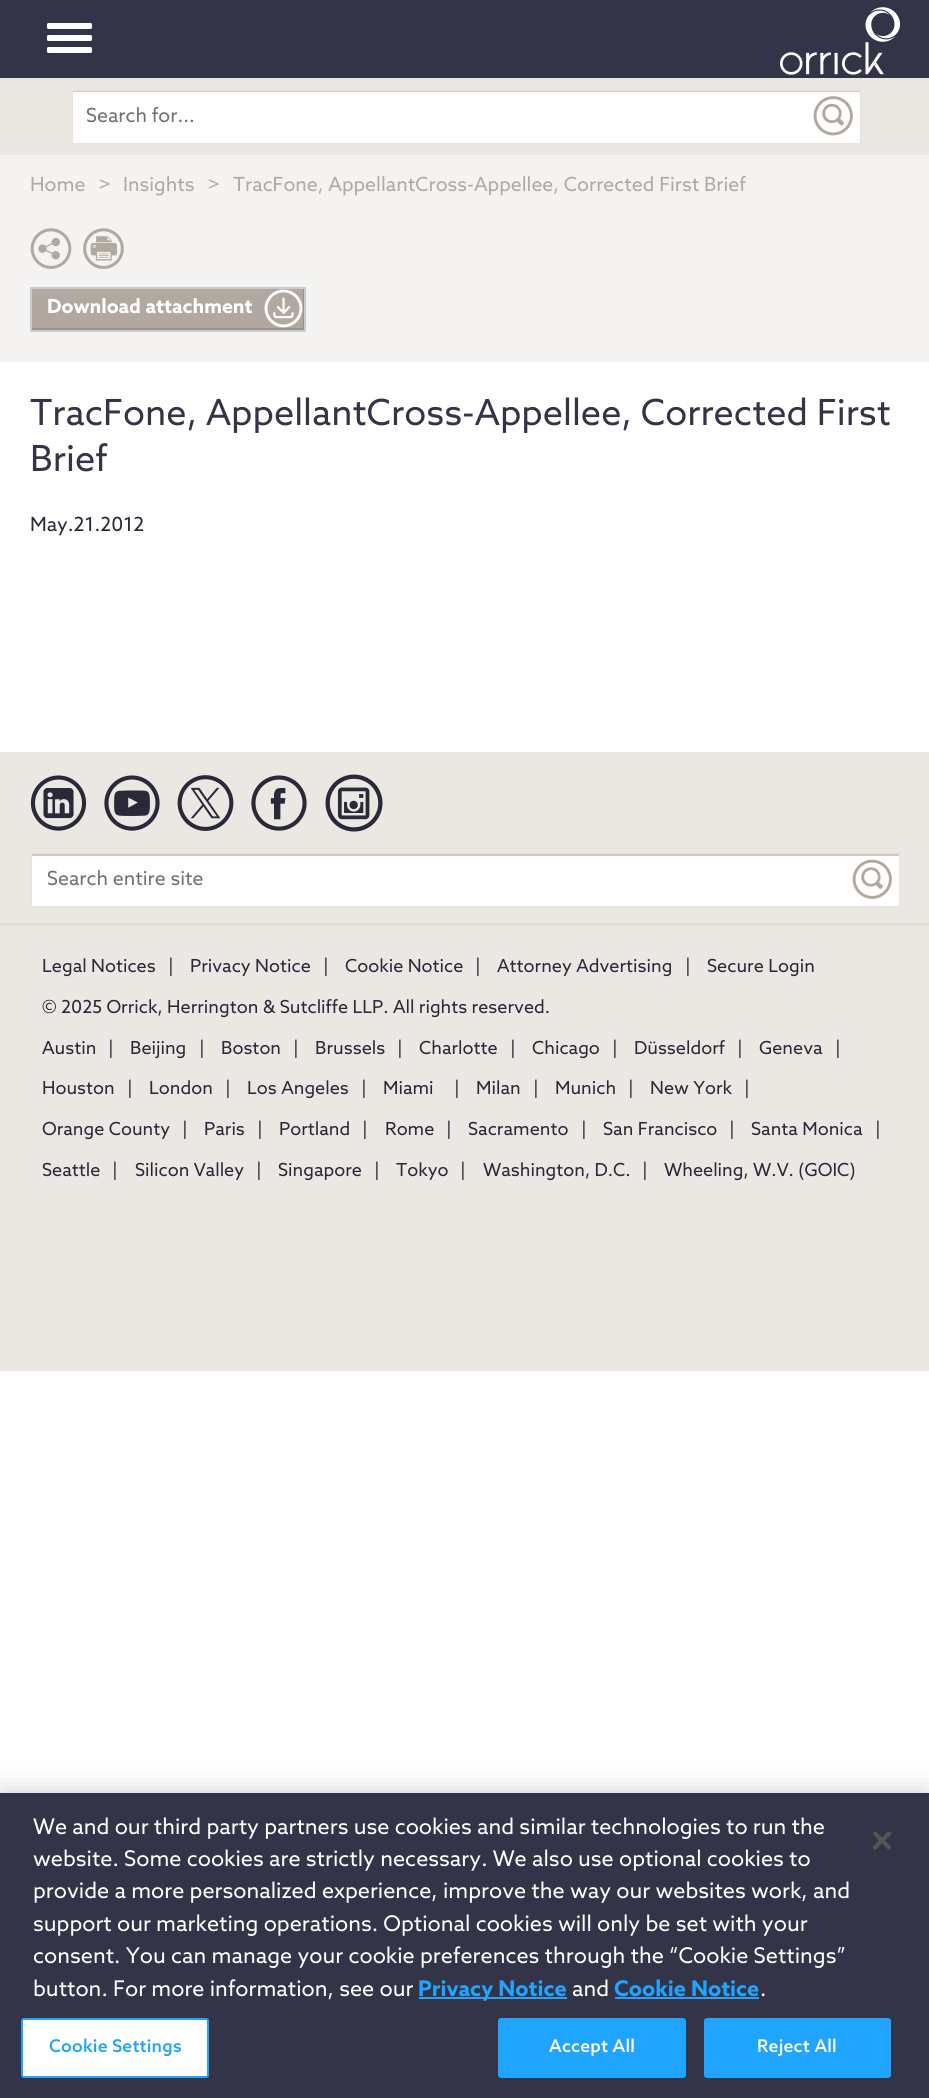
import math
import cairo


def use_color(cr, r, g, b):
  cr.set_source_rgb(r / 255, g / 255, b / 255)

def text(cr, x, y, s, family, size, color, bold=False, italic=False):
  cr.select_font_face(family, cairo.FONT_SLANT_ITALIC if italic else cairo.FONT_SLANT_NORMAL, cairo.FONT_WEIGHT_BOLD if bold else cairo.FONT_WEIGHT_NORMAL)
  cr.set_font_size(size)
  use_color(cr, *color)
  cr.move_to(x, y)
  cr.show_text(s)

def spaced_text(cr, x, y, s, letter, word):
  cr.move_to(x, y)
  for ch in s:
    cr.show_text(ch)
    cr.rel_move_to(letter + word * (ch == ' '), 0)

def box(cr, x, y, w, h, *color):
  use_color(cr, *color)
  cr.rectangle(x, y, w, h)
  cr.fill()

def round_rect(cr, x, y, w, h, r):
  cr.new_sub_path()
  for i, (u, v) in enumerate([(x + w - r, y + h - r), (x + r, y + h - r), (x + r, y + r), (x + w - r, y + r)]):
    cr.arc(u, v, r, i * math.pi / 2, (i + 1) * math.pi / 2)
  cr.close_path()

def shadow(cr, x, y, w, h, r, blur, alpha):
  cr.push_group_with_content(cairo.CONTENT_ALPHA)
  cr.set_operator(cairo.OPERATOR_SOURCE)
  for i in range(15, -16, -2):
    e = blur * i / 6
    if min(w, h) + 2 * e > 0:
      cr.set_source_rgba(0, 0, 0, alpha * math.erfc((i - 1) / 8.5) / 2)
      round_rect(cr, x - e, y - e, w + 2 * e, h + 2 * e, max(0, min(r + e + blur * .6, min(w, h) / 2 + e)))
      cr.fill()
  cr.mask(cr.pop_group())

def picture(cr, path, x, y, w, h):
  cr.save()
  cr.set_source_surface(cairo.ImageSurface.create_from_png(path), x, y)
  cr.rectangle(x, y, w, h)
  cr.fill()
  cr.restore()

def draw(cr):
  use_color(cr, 255, 255, 255)
  cr.paint()
  box(cr, 0, 0, 929, 78, 51, 52, 71)
  use_color(cr, 255, 255, 255)
  round_rect(cr, 47, 23, 45, 6, 1.5)
  cr.fill()
  round_rect(cr, 47, 35, 45, 6, 1.5)
  cr.fill()
  round_rect(cr, 47, 47, 45, 6, 1.5)
  cr.fill()
  picture(cr, "img_01.png", 780, 7, 120, 68)
  box(cr, 0, 78, 929, 77, 235, 232, 228)
  box(cr, 73, 92, 787, 51, 255, 255, 255)
  box(cr, 72, 91, 788, 1, 211, 203, 193)
  box(cr, 71, 89, 790, 2, 232, 228, 223)
  box(cr, 71, 143, 738, 2, 232, 228, 223)
  box(cr, 71, 89, 2, 55, 232, 228, 223)
  box(cr, 860, 89, 2, 55, 232, 228, 223)
  box(cr, 807, 143, 54, 2, 232, 228, 223)
  picture(cr, "img_02.png", 813, 96, 40, 40)
  box(cr, 0, 155, 929, 207, 245, 243, 242)
  picture(cr, "img_03.png", 30, 228, 42, 41)
  picture(cr, "img_04.png", 83, 228, 41, 41)
  box(cr, 32, 289, 271, 39, 177, 169, 159)
  cr.save()
  cr.rectangle(32, 288, 273, 42)
  cr.clip()
  use_color(cr, 154, 144, 131)
  cr.set_fill_rule(cairo.FILL_RULE_EVEN_ODD)
  cr.new_path()
  cr.move_to(-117, 140)
  cr.line_to(453, 140)
  cr.line_to(453, 478)
  cr.line_to(-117, 478)
  cr.close_path()
  cr.move_to(30, 286)
  cr.line_to(303, 286)
  cr.line_to(303, 328)
  cr.line_to(30, 328)
  cr.close_path()
  cr.fill()
  cr.restore()
  cr.rectangle(31, 288, 274, 43)
  use_color(cr, 204, 204, 204)
  cr.stroke()
  picture(cr, "img_05.png", 264, 289, 39, 39)
  box(cr, 0, 752, 929, 619, 235, 232, 228)
  box(cr, 0, 923, 929, 3, 226, 221, 215)
  picture(cr, "img_06.png", 30, 775, 57, 56)
  picture(cr, "img_07.png", 104, 775, 56, 56)
  picture(cr, "img_08.png", 177, 775, 57, 56)
  picture(cr, "img_09.png", 251, 775, 56, 56)
  picture(cr, "img_10.png", 325, 774, 58, 58)
  box(cr, 32, 856, 867, 50, 255, 255, 255)
  box(cr, 32, 854, 867, 2, 211, 203, 193)
  box(cr, 30, 852, 870, 2, 232, 228, 223)
  box(cr, 30, 906, 818, 2, 232, 228, 223)
  box(cr, 30, 852, 2, 56, 232, 228, 223)
  box(cr, 899, 852, 2, 56, 232, 228, 223)
  box(cr, 846, 906, 54, 2, 232, 228, 223)
  picture(cr, "img_11.png", 852, 859, 40, 40)
  use_color(cr, 0, 0, 0)
  shadow(cr, 0, 1793, 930, 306, 0, 13.5, 0.2)
  box(cr, 0, 1793, 929, 305, 51, 52, 71)
  box(cr, 419, 1997, 148, 2, 31, 165, 255)
  box(cr, 615, 1997, 144, 2, 31, 165, 255)
  use_color(cr, 255, 255, 255)
  round_rect(cr, 22, 2019, 186, 58, 2)
  cr.fill_preserve()
  use_color(cr, 31, 165, 255)
  cr.stroke()
  round_rect(cr, 499, 2019, 186, 58, 2)
  cr.fill_preserve()
  cr.stroke()
  round_rect(cr, 705, 2019, 185, 58, 2)
  cr.fill_preserve()
  cr.stroke()
  picture(cr, "img_12.png", 873, 1832, 18, 18)
  text(cr, 86, 122, "Search for...", "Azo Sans", 19.5, (113, 114, 113))
  text(cr, 30, 191, "Home", "Azo Sans", 19.5, (177, 169, 159))
  text(cr, 98, 191, ">", "Azo Sans", 19.5, (177, 169, 159))
  text(cr, 123, 191, "Insights", "Azo Sans", 19.5, (177, 169, 159))
  text(cr, 207, 191, ">", "Azo Sans", 19.5, (177, 169, 159))
  text(cr, 233, 191, "TracFone, AppellantCross-Appellee, Corrected First Brief", "Azo Sans", 19.5, (177, 169, 159))
  text(cr, 47, 313, "Download attachment", "Azo Sans", 19.5, (255, 255, 255), bold=True)
  text(cr, 30, 425, "TracFone, AppellantCross-Appellee, Corrected First", "Azo Sans", 36, (51, 52, 71))
  text(cr, 30, 471, "Brief", "Azo Sans", 36, (51, 52, 71))
  text(cr, 30, 531, "May.21.2012", "Azo Sans", 19.5, (41, 41, 56))
  text(cr, 47, 885, "Search entire site", "Azo Sans", 19.5, (113, 114, 113))
  text(cr, 42, 972, "Legal Notices", "Azo Sans", 18, (41, 41, 56))
  text(cr, 168, 972, "|", "Azo Sans", 18, (41, 41, 56))
  text(cr, 190, 972, "Privacy Notice", "Azo Sans", 18, (41, 41, 56))
  text(cr, 323, 972, "|", "Azo Sans", 18, (41, 41, 56))
  text(cr, 345, 972, "Cookie Notice", "Azo Sans", 18, (41, 41, 56))
  text(cr, 475, 972, "|", "Azo Sans", 18, (41, 41, 56))
  text(cr, 497, 972, "Attorney Advertising", "Azo Sans", 18, (41, 41, 56))
  text(cr, 685, 972, "|", "Azo Sans", 18, (41, 41, 56))
  text(cr, 707, 972, "Secure Login", "Azo Sans", 18, (41, 41, 56))
  text(cr, 42, 1013, "© 2025 Orrick, Herrington & Sutcliffe LLP. All rights reserved.", "Azo Sans", 18, (41, 41, 56))
  text(cr, 42, 1054, "Austin", "Azo Sans", 18, (41, 41, 56))
  text(cr, 108, 1054, "|", "Azo Sans", 18, (41, 41, 56))
  text(cr, 130, 1054, "Beijing", "Azo Sans", 18, (41, 41, 56))
  text(cr, 199, 1054, "|", "Azo Sans", 18, (41, 41, 56))
  text(cr, 221, 1054, "Boston", "Azo Sans", 18, (41, 41, 56))
  text(cr, 293, 1054, "|", "Azo Sans", 18, (41, 41, 56))
  text(cr, 315, 1054, "Brussels", "Azo Sans", 18, (41, 41, 56))
  text(cr, 397, 1054, "|", "Azo Sans", 18, (41, 41, 56))
  text(cr, 419, 1054, "Charlotte", "Azo Sans", 18, (41, 41, 56))
  text(cr, 510, 1054, "|", "Azo Sans", 18, (41, 41, 56))
  text(cr, 532, 1054, "Chicago", "Azo Sans", 18, (41, 41, 56))
  text(cr, 612, 1054, "|", "Azo Sans", 18, (41, 41, 56))
  text(cr, 634, 1054, "Düsseldorf", "Azo Sans", 18, (41, 41, 56))
  text(cr, 737, 1054, "|", "Azo Sans", 18, (41, 41, 56))
  text(cr, 759, 1054, "Geneva", "Azo Sans", 18, (41, 41, 56))
  text(cr, 835, 1054, "|", "Azo Sans", 18, (41, 41, 56))
  text(cr, 42, 1094, "Houston", "Azo Sans", 18, (41, 41, 56))
  text(cr, 127, 1094, "|", "Azo Sans", 18, (41, 41, 56))
  text(cr, 149, 1094, "London", "Azo Sans", 18, (41, 41, 56))
  text(cr, 225, 1094, "|", "Azo Sans", 18, (41, 41, 56))
  text(cr, 247, 1094, "Los Angeles", "Azo Sans", 18, (41, 41, 56))
  text(cr, 361, 1094, "|", "Azo Sans", 18, (41, 41, 56))
  text(cr, 383, 1094, "Miami", "Azo Sans", 18, (41, 41, 56))
  text(cr, 454, 1094, "|", "Azo Sans", 18, (41, 41, 56))
  text(cr, 476, 1094, "Milan", "Azo Sans", 18, (41, 41, 56))
  text(cr, 533, 1094, "|", "Azo Sans", 18, (41, 41, 56))
  text(cr, 555, 1094, "Munich", "Azo Sans", 18, (41, 41, 56))
  text(cr, 628, 1094, "|", "Azo Sans", 18, (41, 41, 56))
  text(cr, 650, 1094, "New York", "Azo Sans", 18, (41, 41, 56))
  text(cr, 744, 1094, "|", "Azo Sans", 18, (41, 41, 56))
  text(cr, 42, 1135, "Orange County", "Azo Sans", 18, (41, 41, 56))
  text(cr, 182, 1135, "|", "Azo Sans", 18, (41, 41, 56))
  text(cr, 204, 1135, "Paris", "Azo Sans", 18, (41, 41, 56))
  text(cr, 257, 1135, "|", "Azo Sans", 18, (41, 41, 56))
  text(cr, 279, 1135, "Portland", "Azo Sans", 18, (41, 41, 56))
  text(cr, 362, 1135, "|", "Azo Sans", 18, (41, 41, 56))
  text(cr, 385, 1135, "Rome", "Azo Sans", 18, (41, 41, 56))
  text(cr, 446, 1135, "|", "Azo Sans", 18, (41, 41, 56))
  text(cr, 468, 1135, "Sacramento", "Azo Sans", 18, (41, 41, 56))
  text(cr, 581, 1135, "|", "Azo Sans", 18, (41, 41, 56))
  text(cr, 603, 1135, "San Francisco", "Azo Sans", 18, (41, 41, 56))
  text(cr, 729, 1135, "|", "Azo Sans", 18, (41, 41, 56))
  text(cr, 751, 1135, "Santa Monica", "Azo Sans", 18, (41, 41, 56))
  text(cr, 875, 1135, "|", "Azo Sans", 18, (41, 41, 56))
  text(cr, 42, 1176, "Seattle", "Azo Sans", 18, (41, 41, 56))
  text(cr, 112, 1176, "|", "Azo Sans", 18, (41, 41, 56))
  text(cr, 135, 1176, "Silicon Valley", "Azo Sans", 18, (41, 41, 56))
  text(cr, 256, 1176, "|", "Azo Sans", 18, (41, 41, 56))
  text(cr, 278, 1176, "Singapore", "Azo Sans", 18, (41, 41, 56))
  text(cr, 374, 1176, "|", "Azo Sans", 18, (41, 41, 56))
  text(cr, 396, 1176, "Tokyo", "Azo Sans", 18, (41, 41, 56))
  text(cr, 460, 1176, "|", "Azo Sans", 18, (41, 41, 56))
  text(cr, 483, 1176, "Washington, D.C.", "Azo Sans", 18, (41, 41, 56))
  text(cr, 642, 1176, "|", "Azo Sans", 18, (41, 41, 56))
  text(cr, 664, 1176, "Wheeling, W.V. (GOIC)", "Azo Sans", 18, (41, 41, 56))
  text(cr, 33, 1834, "We and our third party partners use cookies and similar technologies to run the", "Azo Sans", 21.6, (255, 255, 255))
  text(cr, 33, 1866, "website. Some cookies are strictly necessary. We also use optional cookies to", "Azo Sans", 21.6, (255, 255, 255))
  text(cr, 33, 1898, "provide a more personalized experience, improve the way our websites work, and", "Azo Sans", 21.6, (255, 255, 255))
  text(cr, 33, 1931, "support our marketing operations. Optional cookies will only be set with your", "Azo Sans", 21.6, (255, 255, 255))
  text(cr, 33, 1963, "consent. You can manage your cookie preferences through the “Cookie Settings”", "Azo Sans", 21.6, (255, 255, 255))
  text(cr, 33, 1996, "button. For more information, see our", "Azo Sans", 21.6, (255, 255, 255))
  text(cr, 418, 1996, "Privacy Notice", "Azo Sans", 21.6, (31, 165, 255), bold=True)
  text(cr, 572, 1996, "and", "Azo Sans", 21.6, (255, 255, 255))
  text(cr, 614, 1996, "Cookie Notice", "Azo Sans", 21.6, (31, 165, 255), bold=True)
  text(cr, 760, 1996, ".", "Azo Sans", 21.6, (255, 255, 255))
  cr.select_font_face("Azo Sans Medium")
  cr.set_font_size(17.5)
  use_color(cr, 31, 165, 255)
  spaced_text(cr, 49, 2052, "Cookie Settings", 0.2, 0)
  use_color(cr, 255, 255, 255)
  spaced_text(cr, 549, 2052, "Accept All", 0.2, 0)
  spaced_text(cr, 757, 2052, "Reject All", 0.2, 0)


surface = cairo.ImageSurface(cairo.FORMAT_RGB24, 929, 2098)
cr = cairo.Context(surface)
options = cairo.FontOptions()
options.set_hint_metrics(cairo.HINT_METRICS_OFF)
options.set_hint_style(cairo.HINT_STYLE_NONE)
cr.set_font_options(options)
cr.set_miter_limit(4)
draw(cr)
surface.write_to_png("out.png")
